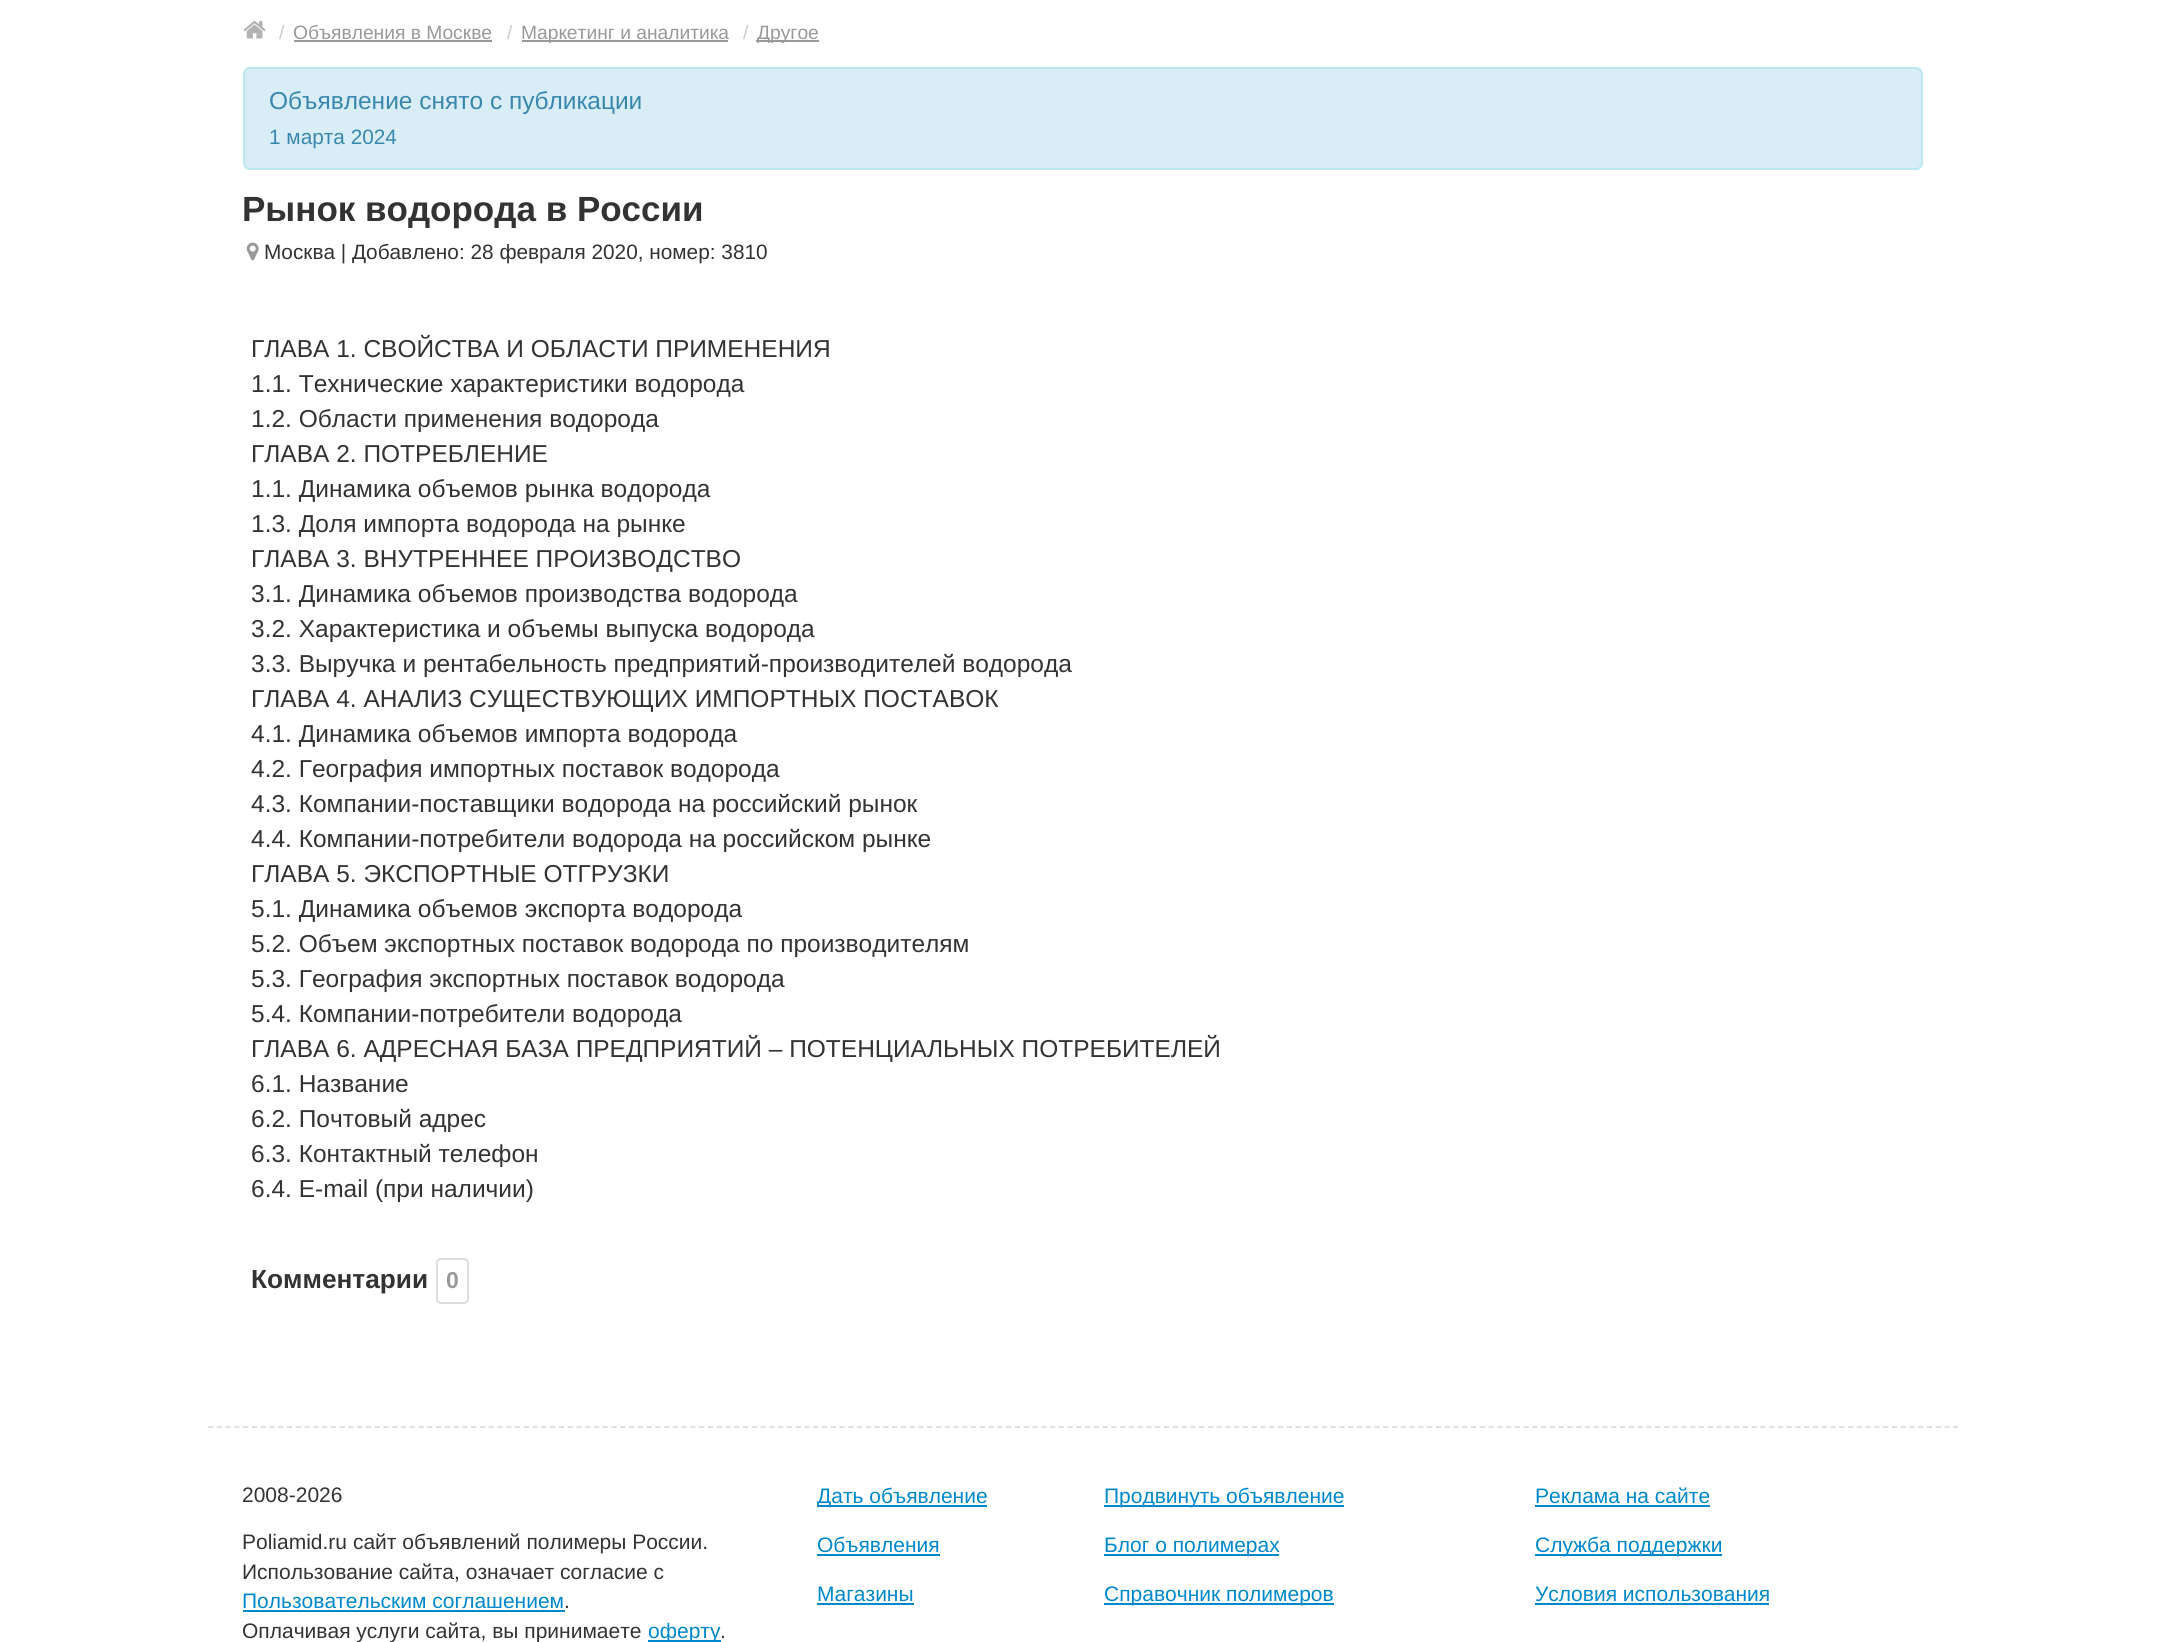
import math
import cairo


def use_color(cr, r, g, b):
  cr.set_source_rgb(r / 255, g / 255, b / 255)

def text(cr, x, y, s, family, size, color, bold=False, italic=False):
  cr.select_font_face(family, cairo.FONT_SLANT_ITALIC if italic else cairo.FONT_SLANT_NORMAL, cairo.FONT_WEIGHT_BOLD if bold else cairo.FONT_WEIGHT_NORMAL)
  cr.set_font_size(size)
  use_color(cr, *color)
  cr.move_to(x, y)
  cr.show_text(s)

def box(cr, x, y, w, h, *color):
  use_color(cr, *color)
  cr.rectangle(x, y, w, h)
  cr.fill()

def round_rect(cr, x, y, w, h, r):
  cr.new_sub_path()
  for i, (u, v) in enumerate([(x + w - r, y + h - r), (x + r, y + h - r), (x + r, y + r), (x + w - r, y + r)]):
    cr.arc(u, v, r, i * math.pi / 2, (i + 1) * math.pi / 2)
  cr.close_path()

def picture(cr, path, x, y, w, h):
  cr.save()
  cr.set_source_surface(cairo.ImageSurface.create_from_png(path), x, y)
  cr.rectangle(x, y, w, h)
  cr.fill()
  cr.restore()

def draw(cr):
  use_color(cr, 255, 255, 255)
  cr.paint()
  picture(cr, "img_01.png", 243, 21, 23, 18)
  box(cr, 294, 40, 198, 2, 153, 153, 153)
  box(cr, 522, 40, 206, 2, 153, 153, 153)
  box(cr, 756, 40, 63, 2, 153, 153, 153)
  use_color(cr, 217, 237, 247)
  round_rect(cr, 244, 68, 1678, 101, 6)
  cr.fill_preserve()
  use_color(cr, 188, 232, 241)
  cr.stroke()
  picture(cr, "img_02.png", 246, 242, 13, 19)
  round_rect(cr, 437, 1259, 31, 44, 4)
  use_color(cr, 221, 221, 221)
  cr.stroke()
  cr.new_path()
  cr.move_to(208, 1427)
  cr.line_to(1958, 1427)
  cr.set_line_width(1.8)
  cr.set_dash([5.25, 3.52])
  cr.stroke()
  box(cr, 243, 1610, 322, 2, 0, 136, 204)
  box(cr, 648, 1640, 73, 2, 0, 136, 204)
  box(cr, 817, 1505, 170, 2, 0, 136, 204)
  box(cr, 817, 1554, 123, 2, 0, 136, 204)
  box(cr, 817, 1603, 97, 2, 0, 136, 204)
  box(cr, 1104, 1505, 240, 2, 0, 136, 204)
  box(cr, 1104, 1554, 175, 2, 0, 136, 204)
  box(cr, 1104, 1603, 230, 2, 0, 136, 204)
  box(cr, 1535, 1505, 175, 2, 0, 136, 204)
  box(cr, 1535, 1554, 187, 2, 0, 136, 204)
  box(cr, 1535, 1603, 234, 2, 0, 136, 204)
  text(cr, 279, 39, "/", "Liberation Sans", 19.25, (204, 204, 204))
  text(cr, 293, 39, "Объявления в Москве", "Liberation Sans", 19.25, (153, 153, 153))
  text(cr, 507, 39, "/", "Liberation Sans", 19.25, (204, 204, 204))
  text(cr, 521, 39, "Маркетинг и аналитика", "Liberation Sans", 19.25, (153, 153, 153))
  text(cr, 743, 39, "/", "Liberation Sans", 19.25, (204, 204, 204))
  text(cr, 757, 39, "Другое", "Liberation Sans", 19.25, (153, 153, 153))
  text(cr, 269, 109, "Объявление снято с публикации", "Liberation Sans", 24.5, (58, 135, 173))
  text(cr, 269, 144, "1 марта 2024", "Liberation Sans", 20.8, (58, 135, 173))
  text(cr, 242, 221, "Рынок водорода в России", "Liberation Sans", 35, (51, 51, 51), bold=True)
  text(cr, 264, 259, "Москва | Добавлено: 28 февраля 2020, номер: 3810", "Liberation Sans", 20.8, (51, 51, 51))
  text(cr, 251, 357, "ГЛАВА 1. СВОЙСТВА И ОБЛАСТИ ПРИМЕНЕНИЯ", "Liberation Sans", 24.5, (51, 51, 51))
  text(cr, 251, 392, "1.1. Технические характеристики водорода", "Liberation Sans", 24.5, (51, 51, 51))
  text(cr, 251, 427, "1.2. Области применения водорода", "Liberation Sans", 24.5, (51, 51, 51))
  text(cr, 251, 462, "ГЛАВА 2. ПОТРЕБЛЕНИЕ", "Liberation Sans", 24.5, (51, 51, 51))
  text(cr, 251, 497, "1.1. Динамика объемов рынка водорода", "Liberation Sans", 24.5, (51, 51, 51))
  text(cr, 251, 532, "1.3. Доля импорта водорода на рынке", "Liberation Sans", 24.5, (51, 51, 51))
  text(cr, 251, 567, "ГЛАВА 3. ВНУТРЕННЕЕ ПРОИЗВОДСТВО", "Liberation Sans", 24.5, (51, 51, 51))
  text(cr, 251, 602, "3.1. Динамика объемов производства водорода", "Liberation Sans", 24.5, (51, 51, 51))
  text(cr, 251, 637, "3.2. Характеристика и объемы выпуска водорода", "Liberation Sans", 24.5, (51, 51, 51))
  text(cr, 251, 672, "3.3. Выручка и рентабельность предприятий-производителей водорода", "Liberation Sans", 24.5, (51, 51, 51))
  text(cr, 251, 707, "ГЛАВА 4. АНАЛИЗ СУЩЕСТВУЮЩИХ ИМПОРТНЫХ ПОСТАВОК", "Liberation Sans", 24.5, (51, 51, 51))
  text(cr, 251, 742, "4.1. Динамика объемов импорта водорода", "Liberation Sans", 24.5, (51, 51, 51))
  text(cr, 251, 777, "4.2. География импортных поставок водорода", "Liberation Sans", 24.5, (51, 51, 51))
  text(cr, 251, 812, "4.3. Компании-поставщики водорода на российский рынок", "Liberation Sans", 24.5, (51, 51, 51))
  text(cr, 251, 847, "4.4. Компании-потребители водорода на российском рынке", "Liberation Sans", 24.5, (51, 51, 51))
  text(cr, 251, 882, "ГЛАВА 5. ЭКСПОРТНЫЕ ОТГРУЗКИ", "Liberation Sans", 24.5, (51, 51, 51))
  text(cr, 251, 917, "5.1. Динамика объемов экспорта водорода", "Liberation Sans", 24.5, (51, 51, 51))
  text(cr, 251, 952, "5.2. Объем экспортных поставок водорода по производителям", "Liberation Sans", 24.5, (51, 51, 51))
  text(cr, 251, 987, "5.3. География экспортных поставок водорода", "Liberation Sans", 24.5, (51, 51, 51))
  text(cr, 251, 1022, "5.4. Компании-потребители водорода", "Liberation Sans", 24.5, (51, 51, 51))
  text(cr, 251, 1057, "ГЛАВА 6. АДРЕСНАЯ БАЗА ПРЕДПРИЯТИЙ – ПОТЕНЦИАЛЬНЫХ ПОТРЕБИТЕЛЕЙ", "Liberation Sans", 24.5, (51, 51, 51))
  text(cr, 251, 1092, "6.1. Название", "Liberation Sans", 24.5, (51, 51, 51))
  text(cr, 251, 1127, "6.2. Почтовый адрес", "Liberation Sans", 24.5, (51, 51, 51))
  text(cr, 251, 1162, "6.3. Контактный телефон", "Liberation Sans", 24.5, (51, 51, 51))
  text(cr, 251, 1197, "6.4. E-mail (при наличии)", "Liberation Sans", 24.5, (51, 51, 51))
  text(cr, 251, 1288, "Комментарии", "Liberation Sans", 26.25, (51, 51, 51), bold=True)
  text(cr, 446, 1288, "0", "Liberation Sans", 23, (153, 153, 153), bold=True)
  text(cr, 242, 1502, "2008-2026", "Liberation Sans", 21, (51, 51, 51))
  text(cr, 242, 1549, "Poliamid.ru сайт объявлений полимеры России.", "Liberation Sans", 21, (51, 51, 51))
  text(cr, 242, 1579, "Использование сайта, означает согласие с", "Liberation Sans", 21, (51, 51, 51))
  text(cr, 242, 1608, "Пользовательским соглашением", "Liberation Sans", 21, (0, 136, 204))
  text(cr, 564, 1608, ".", "Liberation Sans", 21, (51, 51, 51))
  text(cr, 242, 1638, "Оплачивая услуги сайта, вы принимаете", "Liberation Sans", 21, (51, 51, 51))
  text(cr, 648, 1638, "оферту", "Liberation Sans", 21, (0, 136, 204))
  text(cr, 720, 1638, ".", "Liberation Sans", 21, (51, 51, 51))
  text(cr, 817, 1503, "Дать объявление", "Liberation Sans", 21, (0, 136, 204))
  text(cr, 817, 1552, "Объявления", "Liberation Sans", 21, (0, 136, 204))
  text(cr, 817, 1601, "Магазины", "Liberation Sans", 21, (0, 136, 204))
  text(cr, 1104, 1503, "Продвинуть объявление", "Liberation Sans", 21, (0, 136, 204))
  text(cr, 1104, 1552, "Блог о полимерах", "Liberation Sans", 21, (0, 136, 204))
  text(cr, 1104, 1601, "Справочник полимеров", "Liberation Sans", 21, (0, 136, 204))
  text(cr, 1535, 1503, "Реклама на сайте", "Liberation Sans", 21, (0, 136, 204))
  text(cr, 1535, 1552, "Служба поддержки", "Liberation Sans", 21, (0, 136, 204))
  text(cr, 1535, 1601, "Условия использования", "Liberation Sans", 21, (0, 136, 204))


surface = cairo.ImageSurface(cairo.FORMAT_RGB24, 2164, 1642)
cr = cairo.Context(surface)
options = cairo.FontOptions()
options.set_hint_metrics(cairo.HINT_METRICS_OFF)
options.set_hint_style(cairo.HINT_STYLE_NONE)
cr.set_font_options(options)
cr.set_miter_limit(4)
draw(cr)
surface.write_to_png("out.png")
